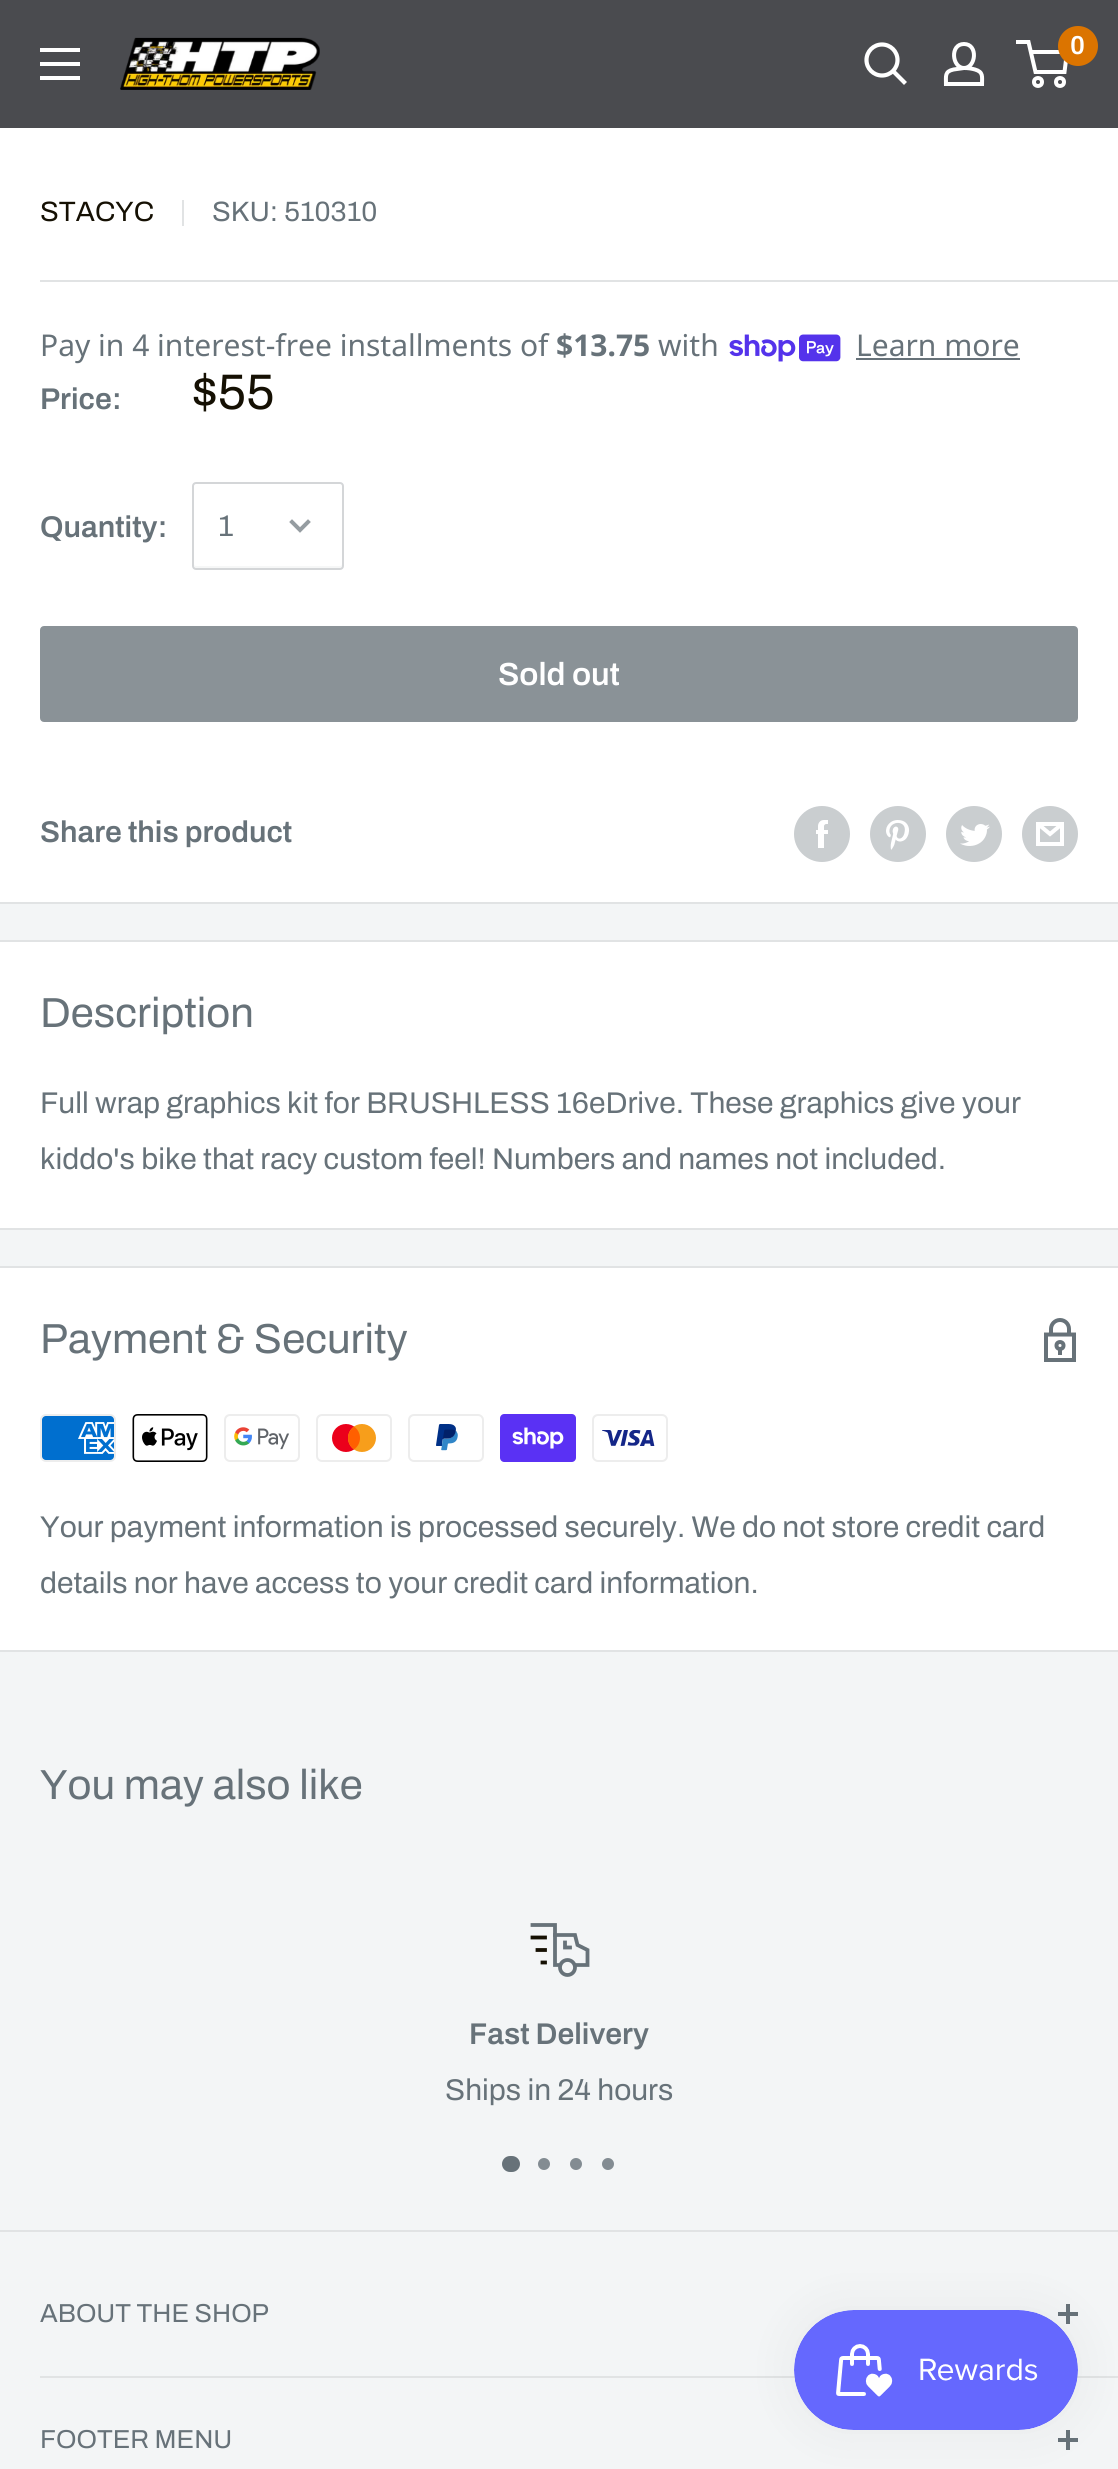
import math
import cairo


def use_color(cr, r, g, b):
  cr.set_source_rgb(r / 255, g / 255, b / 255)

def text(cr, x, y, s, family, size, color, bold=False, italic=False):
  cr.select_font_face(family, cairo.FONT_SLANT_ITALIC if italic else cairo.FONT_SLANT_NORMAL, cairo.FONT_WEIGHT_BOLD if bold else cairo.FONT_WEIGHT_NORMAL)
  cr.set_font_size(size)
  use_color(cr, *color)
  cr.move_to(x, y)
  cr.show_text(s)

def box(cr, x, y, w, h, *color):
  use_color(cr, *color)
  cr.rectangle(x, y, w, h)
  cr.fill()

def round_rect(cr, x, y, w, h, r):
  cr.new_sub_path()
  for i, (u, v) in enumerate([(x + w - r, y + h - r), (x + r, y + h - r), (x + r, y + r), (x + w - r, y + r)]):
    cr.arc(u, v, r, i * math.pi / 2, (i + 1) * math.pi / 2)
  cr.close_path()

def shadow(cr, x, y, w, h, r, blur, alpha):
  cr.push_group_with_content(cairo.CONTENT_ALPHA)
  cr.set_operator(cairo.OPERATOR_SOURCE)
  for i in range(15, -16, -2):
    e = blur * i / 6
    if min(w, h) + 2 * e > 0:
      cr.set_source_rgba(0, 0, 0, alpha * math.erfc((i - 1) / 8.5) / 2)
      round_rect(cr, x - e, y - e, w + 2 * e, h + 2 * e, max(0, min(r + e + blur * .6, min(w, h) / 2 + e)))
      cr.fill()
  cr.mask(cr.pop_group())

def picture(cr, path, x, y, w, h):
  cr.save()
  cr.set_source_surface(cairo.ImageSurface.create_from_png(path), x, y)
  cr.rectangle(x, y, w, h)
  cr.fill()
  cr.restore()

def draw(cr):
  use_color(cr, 243, 245, 246)
  cr.paint()
  box(cr, 0, 0, 1118, 128, 74, 75, 79)
  use_color(cr, 255, 255, 255)
  cr.set_fill_rule(cairo.FILL_RULE_EVEN_ODD)
  cr.new_path()
  cr.move_to(40, 76)
  cr.line_to(80, 76)
  cr.line_to(80, 80)
  cr.line_to(40, 80)
  cr.close_path()
  cr.move_to(40, 48)
  cr.line_to(80, 48)
  cr.line_to(80, 52)
  cr.line_to(40, 52)
  cr.close_path()
  cr.move_to(40, 62)
  cr.line_to(80, 62)
  cr.line_to(80, 66)
  cr.line_to(40, 66)
  cr.close_path()
  cr.fill()
  picture(cr, "img_01.png", 120, 37, 200, 53)
  cr.new_path()
  cr.move_to(904, 82)
  cr.line_to(893.5, 71.5)
  cr.set_line_width(4.2)
  cr.set_line_cap(cairo.LINE_CAP_SQUARE)
  cr.stroke()
  cr.arc(882, 60, 15.5, 0, 2 * math.pi)
  cr.set_line_cap(cairo.LINE_CAP_BUTT)
  cr.stroke()
  cr.new_path()
  cr.move_to(964, 68)
  cr.curve_to(968, 68, 971.5, 68.5, 975, 69.5)
  cr.curve_to(983.5, 72, 982, 76.5, 982, 84)
  cr.line_to(946, 84)
  cr.curve_to(946, 76, 944.5, 71.5, 953.5, 69.5)
  cr.close_path()
  cr.move_to(964, 68)
  cr.curve_to(952, 68, 949.5, 44, 964, 44)
  cr.curve_to(978.5, 44, 976, 68, 964, 68)
  cr.close_path()
  cr.set_line_width(4)
  cr.stroke()
  cr.arc(1038, 82, 4, 0, 2 * math.pi)
  cr.stroke()
  cr.arc(1060, 82, 4, 0, 2 * math.pi)
  cr.stroke()
  cr.new_path()
  cr.move_to(1030.5, 52)
  cr.line_to(1067, 52)
  cr.line_to(1064.5, 72)
  cr.line_to(1035.5, 72)
  cr.line_to(1028.5, 42)
  cr.line_to(1016, 42)
  cr.stroke()
  use_color(cr, 219, 116, 0)
  cr.arc(1078, 46, 20, 0, 2 * math.pi)
  cr.fill()
  box(cr, 0, 128, 1118, 774, 255, 255, 255)
  box(cr, 0, 902, 1118, 2, 225, 227, 228)
  box(cr, 182, 200, 2, 26, 225, 227, 228)
  box(cr, 40, 280, 1078, 2, 225, 227, 228)
  picture(cr, "img_02.png", 729, 334, 112, 28)
  box(cr, 856, 358, 164, 2, 103, 114, 121)
  use_color(cr, 246, 247, 247)
  cr.set_fill_rule(cairo.FILL_RULE_WINDING)
  cr.new_path()
  cr.move_to(194, 564)
  cr.curve_to(194, 565, 194, 568, 196, 568)
  cr.line_to(340, 568)
  cr.curve_to(342, 568, 342, 566, 342, 564)
  cr.curve_to(342, 565, 341, 566, 340, 566)
  cr.line_to(196, 566)
  cr.curve_to(195, 566, 194, 565, 194, 564)
  cr.close_path()
  cr.fill()
  round_rect(cr, 193, 483, 150, 86, 3)
  use_color(cr, 212, 214, 216)
  cr.set_line_width(2)
  cr.stroke()
  cr.new_path()
  cr.move_to(308, 522)
  cr.line_to(300, 530)
  cr.line_to(292, 522)
  use_color(cr, 149, 156, 161)
  cr.set_line_width(4)
  cr.set_line_cap(cairo.LINE_CAP_SQUARE)
  cr.stroke()
  use_color(cr, 138, 146, 151)
  round_rect(cr, 41, 627, 1036, 94, 3)
  cr.fill_preserve()
  cr.set_line_width(2)
  cr.set_line_cap(cairo.LINE_CAP_BUTT)
  cr.stroke()
  picture(cr, "img_03.png", 794, 806, 56, 56)
  picture(cr, "img_04.png", 870, 806, 56, 56)
  picture(cr, "img_05.png", 946, 806, 56, 56)
  picture(cr, "img_06.png", 1022, 806, 56, 56)
  box(cr, 0, 942, 1118, 286, 255, 255, 255)
  box(cr, 0, 940, 1118, 2, 225, 227, 228)
  box(cr, 0, 1228, 1118, 2, 225, 227, 228)
  box(cr, 0, 1268, 1118, 382, 255, 255, 255)
  box(cr, 0, 1266, 1118, 2, 225, 227, 228)
  box(cr, 0, 1650, 1118, 2, 225, 227, 228)
  cr.new_path()
  cr.move_to(1060, 1320)
  cr.curve_to(1055, 1320, 1051, 1324, 1051, 1329)
  cr.line_to(1051, 1334.5)
  cr.line_to(1069, 1334.5)
  cr.line_to(1069, 1329)
  cr.curve_to(1069, 1324, 1065, 1320, 1060, 1320)
  cr.close_path()
  cr.move_to(1046, 1334.5)
  cr.line_to(1074, 1334.5)
  cr.line_to(1074, 1360)
  cr.line_to(1046, 1360)
  cr.close_path()
  use_color(cr, 103, 114, 121)
  cr.set_line_width(4)
  cr.set_line_cap(cairo.LINE_CAP_SQUARE)
  cr.stroke()
  cr.arc(1060, 1345.5, 3.5, 0, 2 * math.pi)
  cr.set_line_cap(cairo.LINE_CAP_BUTT)
  cr.stroke()
  cr.new_path()
  cr.move_to(1060, 1349)
  cr.line_to(1060, 1353)
  cr.set_line_cap(cairo.LINE_CAP_SQUARE)
  cr.stroke()
  picture(cr, "img_07.png", 40, 1414, 76, 48)
  picture(cr, "img_08.png", 132, 1414, 76, 48)
  picture(cr, "img_09.png", 224, 1414, 76, 48)
  picture(cr, "img_10.png", 316, 1414, 76, 48)
  picture(cr, "img_11.png", 408, 1414, 76, 48)
  picture(cr, "img_12.png", 500, 1414, 76, 48)
  picture(cr, "img_13.png", 592, 1414, 76, 48)
  picture(cr, "img_14.png", 530, 1923, 60, 54)
  round_rect(cr, 502, 2156, 18, 16, 8)
  cr.fill()
  use_color(cr, 131, 140, 146)
  cr.arc(544, 2164, 6, 0, 2 * math.pi)
  cr.fill()
  cr.arc(576, 2164, 6, 0, 2 * math.pi)
  cr.fill()
  cr.arc(608, 2164, 6, 0, 2 * math.pi)
  cr.fill()
  box(cr, 0, 2230, 1118, 2, 225, 227, 228)
  box(cr, 40, 2376, 1078, 2, 225, 227, 228)
  box(cr, 1066, 2304, 4, 20, 103, 114, 121)
  box(cr, 1058, 2312, 20, 4, 103, 114, 121)
  box(cr, 1066, 2430, 4, 20, 103, 114, 121)
  box(cr, 1058, 2438, 20, 4, 103, 114, 121)
  use_color(cr, 0, 0, 0)
  shadow(cr, 794, 2310, 284, 120, 60, 25, 0.05)
  picture(cr, "img_15.png", 794, 2310, 284, 120)
  text(cr, 1070, 54, "0", "Archivo SemiBold", 26, (255, 255, 255))
  text(cr, 40, 221, "STACYC", "Archivo", 28, (21, 16, 3))
  text(cr, 212, 221, "SKU: 510310", "Archivo", 28, (103, 114, 121))
  text(cr, 40, 356, "Pay in 4 interest-free installments of", "Noto Sans", 30, (103, 114, 121))
  text(cr, 556, 356, "$13.75", "Noto Sans", 30, (103, 114, 121), bold=True)
  text(cr, 658, 356, "with", "Noto Sans", 30, (103, 114, 121))
  text(cr, 856, 356, "Learn more", "Noto Sans", 30, (103, 114, 121))
  text(cr, 40, 409, "Price:", "Archivo SemiBold", 30, (103, 114, 121))
  text(cr, 192, 409, "$55", "Archivo", 50, (21, 16, 3))
  text(cr, 40, 537, "Quantity:", "Archivo SemiBold", 30, (103, 114, 121))
  text(cr, 218, 536, "1", "Archivo", 30, (103, 114, 121))
  text(cr, 498, 685, "Sold out", "Archivo SemiBold", 32, (255, 255, 255))
  text(cr, 40, 842, "Share this product", "Archivo SemiBold", 30, (103, 114, 121))
  text(cr, 40, 1027, "Description", "Archivo", 42, (103, 114, 121))
  text(cr, 40, 1113, "Full wrap graphics kit for BRUSHLESS 16eDrive. These graphics give your", "Archivo", 30, (103, 114, 121))
  text(cr, 40, 1169, "kiddo's bike that racy custom feel! Numbers and names not included.", "Archivo", 30, (103, 114, 121))
  text(cr, 40, 1353, "Payment & Security", "Archivo", 42, (103, 114, 121))
  text(cr, 40, 1537, "Your payment information is processed securely. We do not store credit card", "Archivo", 30, (103, 114, 121))
  text(cr, 40, 1593, "details nor have access to your credit card information.", "Archivo", 30, (103, 114, 121))
  text(cr, 40, 1799, "You may also like", "Archivo", 42, (103, 114, 121))
  text(cr, 469, 2044, "Fast Delivery", "Archivo SemiBold", 30, (103, 114, 121))
  text(cr, 445, 2100, "Ships in 24 hours", "Archivo", 30, (103, 114, 121))
  text(cr, 40, 2322, "ABOUT THE SHOP", "Archivo", 26, (103, 114, 121))
  text(cr, 40, 2448, "FOOTER MENU", "Archivo", 26, (103, 114, 121))


surface = cairo.ImageSurface(cairo.FORMAT_RGB24, 1118, 2469)
cr = cairo.Context(surface)
options = cairo.FontOptions()
options.set_hint_metrics(cairo.HINT_METRICS_OFF)
options.set_hint_style(cairo.HINT_STYLE_NONE)
cr.set_font_options(options)
cr.set_miter_limit(4)
draw(cr)
surface.write_to_png("out.png")
